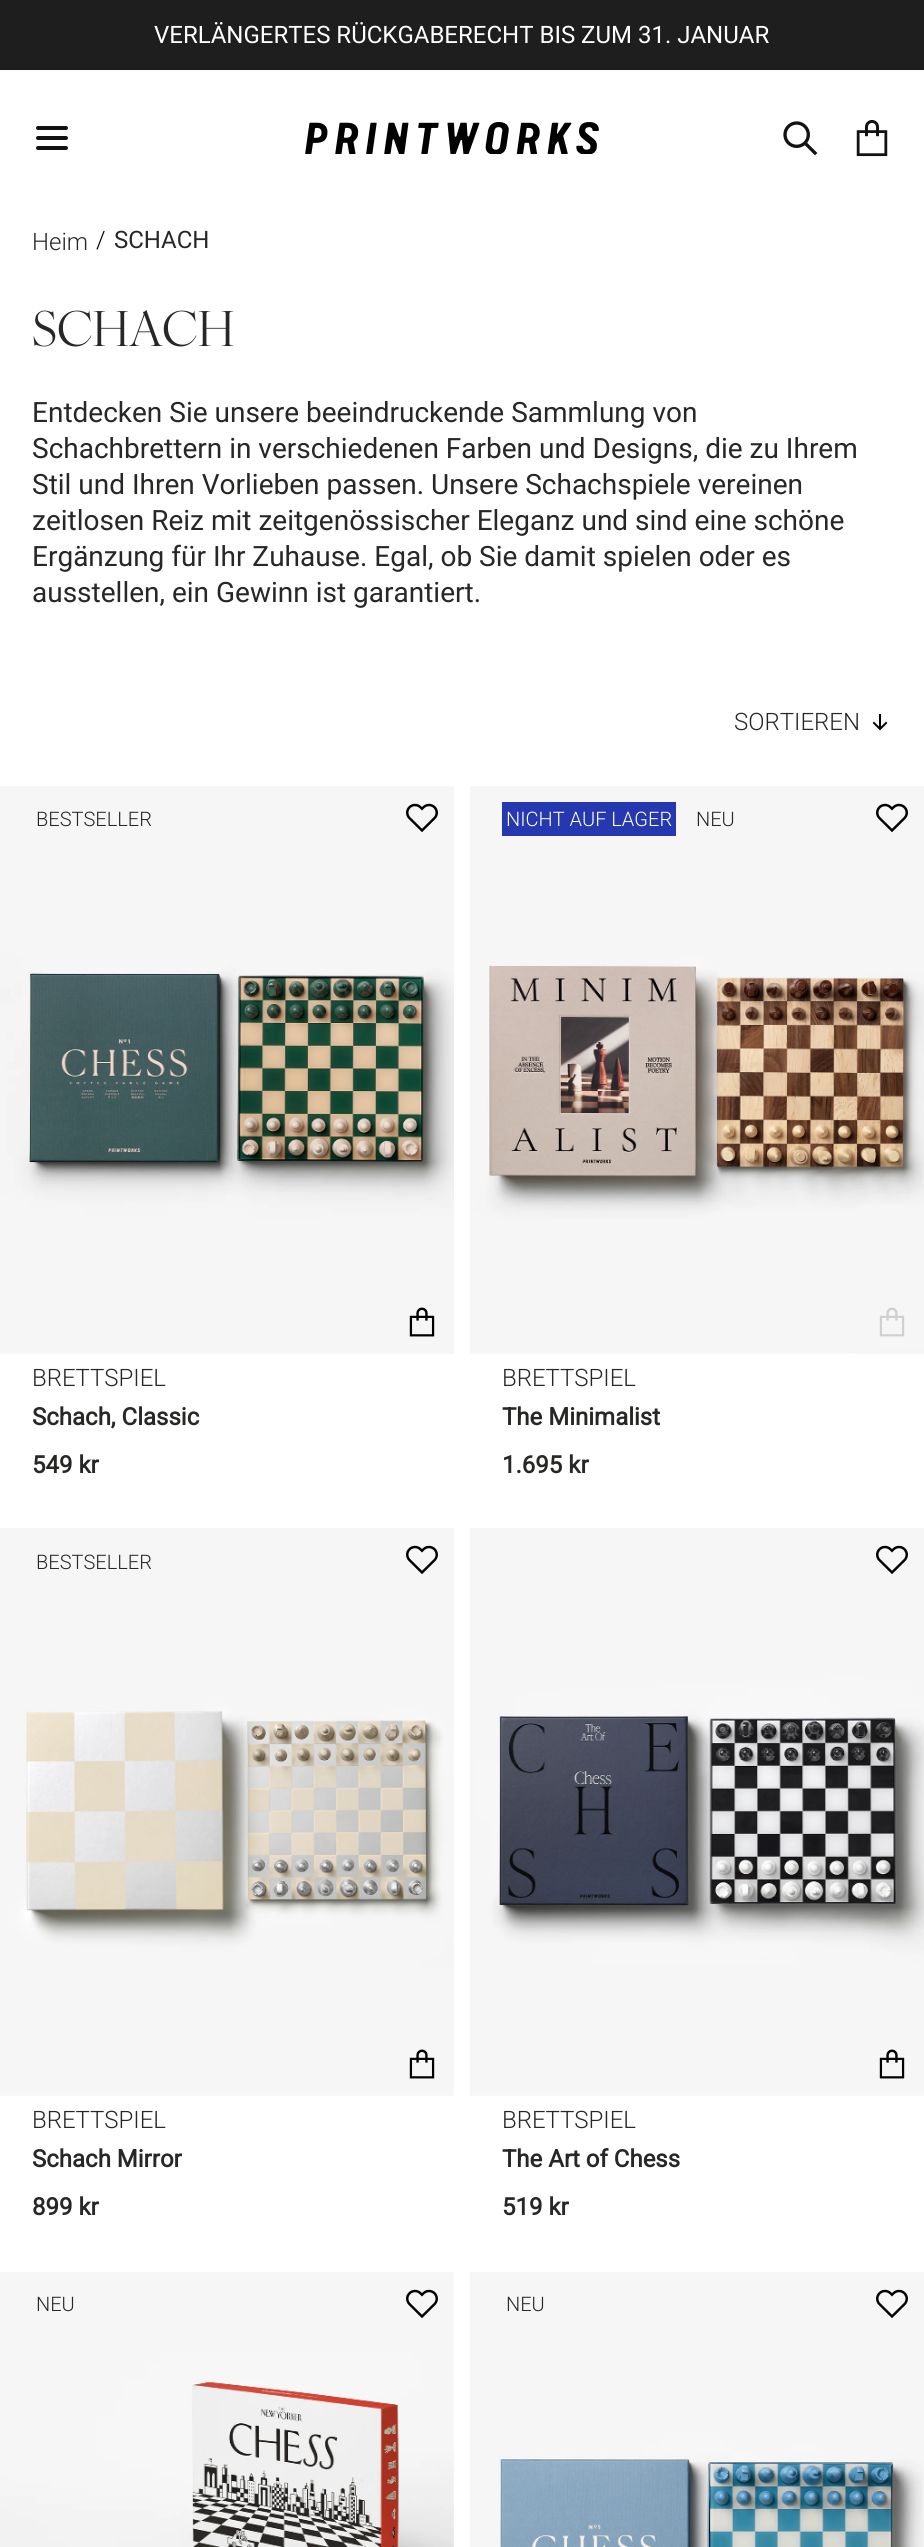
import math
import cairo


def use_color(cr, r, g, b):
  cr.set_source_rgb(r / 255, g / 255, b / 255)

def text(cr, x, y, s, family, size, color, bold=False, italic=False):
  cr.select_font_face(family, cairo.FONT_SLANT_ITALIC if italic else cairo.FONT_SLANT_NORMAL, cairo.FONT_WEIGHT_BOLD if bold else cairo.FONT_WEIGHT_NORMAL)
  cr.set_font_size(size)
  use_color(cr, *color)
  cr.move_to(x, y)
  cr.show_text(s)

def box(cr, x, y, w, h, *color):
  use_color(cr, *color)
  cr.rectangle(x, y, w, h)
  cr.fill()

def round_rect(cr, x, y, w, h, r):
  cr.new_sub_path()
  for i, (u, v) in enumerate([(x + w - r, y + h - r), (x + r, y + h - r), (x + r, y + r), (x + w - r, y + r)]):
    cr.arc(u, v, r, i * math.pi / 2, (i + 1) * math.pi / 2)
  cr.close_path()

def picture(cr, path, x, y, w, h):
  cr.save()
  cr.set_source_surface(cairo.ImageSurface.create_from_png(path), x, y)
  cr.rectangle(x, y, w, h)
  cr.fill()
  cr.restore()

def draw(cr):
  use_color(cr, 255, 255, 255)
  cr.paint()
  box(cr, 0, 0, 924, 70, 30, 30, 30)
  use_color(cr, 18, 18, 18)
  round_rect(cr, 36, 126, 32, 4, 2)
  cr.fill()
  round_rect(cr, 36, 136, 32, 4, 2)
  cr.fill()
  round_rect(cr, 36, 146, 32, 4, 2)
  cr.fill()
  picture(cr, "img_01.png", 305, 122, 294, 32)
  picture(cr, "img_02.png", 783, 121, 35, 35)
  picture(cr, "img_03.png", 856, 120, 32, 37)
  picture(cr, "img_04.png", 872, 714, 16, 17)
  picture(cr, "img_05.png", 0, 786, 454, 568)
  picture(cr, "img_06.png", 406, 803, 32, 30)
  picture(cr, "img_07.png", 409, 1307, 26, 30)
  picture(cr, "img_08.png", 470, 786, 454, 568)
  box(cr, 502, 802, 174, 34, 37, 56, 176)
  picture(cr, "img_06.png", 876, 803, 32, 30)
  picture(cr, "img_09.png", 879, 1307, 26, 30)
  picture(cr, "img_10.png", 0, 1528, 454, 568)
  picture(cr, "img_06.png", 406, 1545, 32, 30)
  picture(cr, "img_07.png", 409, 2049, 26, 30)
  picture(cr, "img_11.png", 470, 1528, 454, 568)
  picture(cr, "img_06.png", 876, 1545, 32, 30)
  picture(cr, "img_07.png", 879, 2049, 26, 30)
  picture(cr, "img_12.png", 0, 2272, 454, 275)
  picture(cr, "img_06.png", 406, 2289, 32, 30)
  picture(cr, "img_13.png", 470, 2272, 454, 275)
  picture(cr, "img_06.png", 876, 2289, 32, 30)
  text(cr, 154, 43, "VERLÄNGERTES RÜCKGABERECHT BIS ZUM 31. JANUAR", "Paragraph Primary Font", 24, (255, 255, 255))
  text(cr, 32, 250, "Heim", "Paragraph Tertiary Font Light", 24, (39, 39, 38))
  text(cr, 96, 248, "/", "Paragraph Tertiary Font Light", 24, (0, 0, 0))
  text(cr, 114, 248, "SCHACH", "Paragraph Primary Font", 24, (39, 39, 38))
  text(cr, 32, 346, "SCHACH", "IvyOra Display", 48, (39, 39, 38))
  text(cr, 32, 422, "Entdecken Sie unsere beeindruckende Sammlung von", "Paragraph Primary Font", 28, (39, 39, 38))
  text(cr, 32, 458, "Schachbrettern in verschiedenen Farben und Designs, die zu Ihrem", "Paragraph Primary Font", 28, (39, 39, 38))
  text(cr, 32, 494, "Stil und Ihren Vorlieben passen. Unsere Schachspiele vereinen", "Paragraph Primary Font", 28, (39, 39, 38))
  text(cr, 32, 530, "zeitlosen Reiz mit zeitgenössischer Eleganz und sind eine schöne", "Paragraph Primary Font", 28, (39, 39, 38))
  text(cr, 32, 566, "Ergänzung für Ihr Zuhause. Egal, ob Sie damit spielen oder es", "Paragraph Primary Font", 28, (39, 39, 38))
  text(cr, 32, 602, "ausstellen, ein Gewinn ist garantiert.", "Paragraph Primary Font", 28, (39, 39, 38))
  text(cr, 734, 730, "SORTIEREN", "Paragraph Tertiary Font Light", 24, (39, 39, 38))
  text(cr, 36, 826, "BESTSELLER", "Paragraph Tertiary Font Light", 20, (39, 39, 38))
  text(cr, 32, 1386, "BRETTSPIEL", "Paragraph Tertiary Font Light", 24, (39, 39, 38))
  text(cr, 32, 1425, "Schach, Classic", "Paragraph Primary Font", 24, (39, 39, 38), bold=True)
  text(cr, 32, 1473, "549 kr", "Paragraph Primary Font", 24, (39, 39, 38), bold=True)
  text(cr, 506, 826, "NICHT AUF LAGER", "Paragraph Tertiary Font Light", 20, (255, 255, 255))
  text(cr, 696, 826, "NEU", "Paragraph Tertiary Font Light", 20, (39, 39, 38))
  text(cr, 502, 1386, "BRETTSPIEL", "Paragraph Tertiary Font Light", 24, (39, 39, 38))
  text(cr, 502, 1425, "The Minimalist", "Paragraph Primary Font", 24, (39, 39, 38), bold=True)
  text(cr, 502, 1473, "1.695 kr", "Paragraph Primary Font", 24, (39, 39, 38), bold=True)
  text(cr, 36, 1569, "BESTSELLER", "Paragraph Tertiary Font Light", 20, (39, 39, 38))
  text(cr, 32, 2128, "BRETTSPIEL", "Paragraph Tertiary Font Light", 24, (39, 39, 38))
  text(cr, 32, 2167, "Schach Mirror", "Paragraph Primary Font", 24, (39, 39, 38), bold=True)
  text(cr, 32, 2215, "899 kr", "Paragraph Primary Font", 24, (39, 39, 38), bold=True)
  text(cr, 502, 2128, "BRETTSPIEL", "Paragraph Tertiary Font Light", 24, (39, 39, 38))
  text(cr, 502, 2167, "The Art of Chess", "Paragraph Primary Font", 24, (39, 39, 38), bold=True)
  text(cr, 502, 2215, "519 kr", "Paragraph Primary Font", 24, (39, 39, 38), bold=True)
  text(cr, 36, 2311, "NEU", "Paragraph Tertiary Font Light", 20, (39, 39, 38))
  text(cr, 506, 2311, "NEU", "Paragraph Tertiary Font Light", 20, (39, 39, 38))


surface = cairo.ImageSurface(cairo.FORMAT_RGB24, 924, 2547)
cr = cairo.Context(surface)
options = cairo.FontOptions()
options.set_hint_metrics(cairo.HINT_METRICS_OFF)
options.set_hint_style(cairo.HINT_STYLE_NONE)
cr.set_font_options(options)
cr.set_miter_limit(4)
draw(cr)
surface.write_to_png("out.png")
